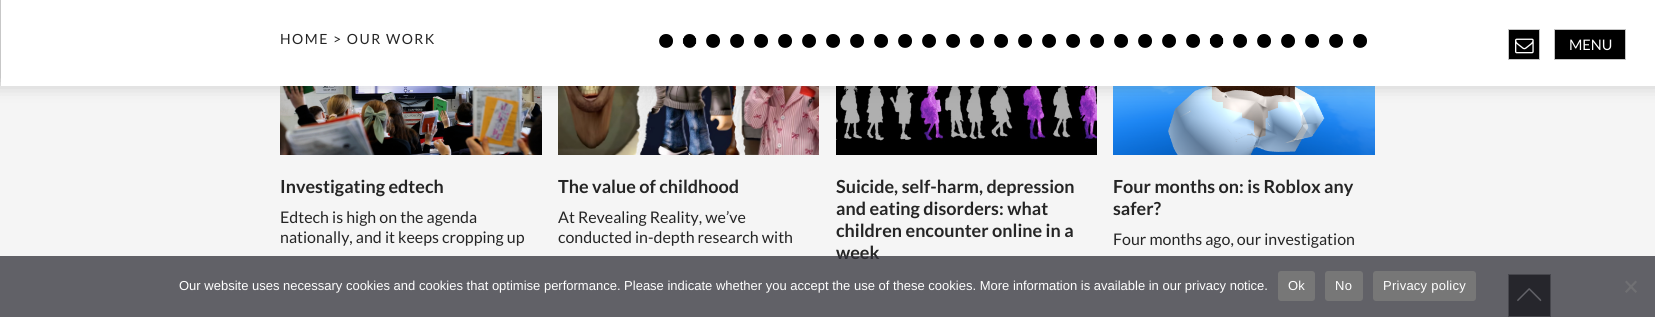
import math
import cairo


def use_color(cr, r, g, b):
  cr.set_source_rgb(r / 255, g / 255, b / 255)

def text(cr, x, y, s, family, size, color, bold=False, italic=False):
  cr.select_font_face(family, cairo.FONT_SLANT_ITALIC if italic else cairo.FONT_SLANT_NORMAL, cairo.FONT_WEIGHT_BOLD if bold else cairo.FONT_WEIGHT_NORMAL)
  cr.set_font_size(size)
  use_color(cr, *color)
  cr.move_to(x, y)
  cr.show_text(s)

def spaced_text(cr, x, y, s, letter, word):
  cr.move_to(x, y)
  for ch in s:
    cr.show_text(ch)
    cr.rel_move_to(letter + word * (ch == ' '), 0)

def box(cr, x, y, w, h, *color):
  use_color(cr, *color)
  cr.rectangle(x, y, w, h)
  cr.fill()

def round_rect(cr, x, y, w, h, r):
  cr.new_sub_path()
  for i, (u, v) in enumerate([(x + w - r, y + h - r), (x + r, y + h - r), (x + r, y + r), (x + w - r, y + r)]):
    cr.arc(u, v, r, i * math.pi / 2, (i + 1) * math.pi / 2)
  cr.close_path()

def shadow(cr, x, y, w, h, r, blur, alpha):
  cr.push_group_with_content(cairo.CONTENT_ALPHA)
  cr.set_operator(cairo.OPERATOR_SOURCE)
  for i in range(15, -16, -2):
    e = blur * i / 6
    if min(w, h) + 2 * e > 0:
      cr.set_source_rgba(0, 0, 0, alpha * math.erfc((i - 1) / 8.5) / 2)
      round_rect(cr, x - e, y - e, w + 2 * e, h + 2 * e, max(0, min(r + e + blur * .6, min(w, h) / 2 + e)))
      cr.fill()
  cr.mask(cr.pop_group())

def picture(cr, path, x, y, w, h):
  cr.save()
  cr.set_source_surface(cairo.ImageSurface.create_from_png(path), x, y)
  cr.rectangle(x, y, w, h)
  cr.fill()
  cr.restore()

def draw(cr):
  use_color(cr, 245, 245, 245)
  cr.paint()
  picture(cr, "img_05.png", 280, 86, 262, 69)
  picture(cr, "img_06.png", 558, 86, 261, 69)
  picture(cr, "img_07.png", 836, 86, 261, 69)
  picture(cr, "img_08.png", 1113, 86, 262, 69)
  use_color(cr, 0, 0, 0)
  shadow(cr, -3, -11, 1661, 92, 0, 10, 0.3)
  box(cr, 1, 0, 1654, 86, 255, 255, 255)
  box(cr, 659, 34, 708, 14, 0, 0, 0)
  picture(cr, "img_01.png", 656, 29, 22, 22)
  picture(cr, "img_02.png", 678, 29, 23, 22)
  picture(cr, "img_03.png", 701, 29, 24, 22)
  picture(cr, "img_03.png", 725, 29, 24, 22)
  picture(cr, "img_03.png", 749, 29, 24, 22)
  picture(cr, "img_03.png", 773, 29, 24, 22)
  picture(cr, "img_03.png", 797, 29, 24, 22)
  picture(cr, "img_03.png", 821, 29, 24, 22)
  picture(cr, "img_03.png", 845, 29, 24, 22)
  picture(cr, "img_03.png", 869, 29, 24, 22)
  picture(cr, "img_03.png", 893, 29, 24, 22)
  picture(cr, "img_03.png", 917, 29, 24, 22)
  picture(cr, "img_03.png", 941, 29, 24, 22)
  picture(cr, "img_03.png", 965, 29, 24, 22)
  picture(cr, "img_03.png", 989, 29, 24, 22)
  picture(cr, "img_03.png", 1013, 29, 24, 22)
  picture(cr, "img_03.png", 1037, 29, 24, 22)
  picture(cr, "img_03.png", 1061, 29, 24, 22)
  picture(cr, "img_03.png", 1085, 29, 24, 22)
  picture(cr, "img_03.png", 1109, 29, 24, 22)
  picture(cr, "img_03.png", 1133, 29, 24, 22)
  picture(cr, "img_03.png", 1157, 29, 24, 22)
  picture(cr, "img_03.png", 1181, 29, 24, 22)
  picture(cr, "img_04.png", 1205, 29, 23, 22)
  picture(cr, "img_03.png", 1228, 29, 24, 22)
  picture(cr, "img_03.png", 1252, 29, 24, 22)
  picture(cr, "img_03.png", 1276, 29, 24, 22)
  picture(cr, "img_03.png", 1300, 29, 24, 22)
  picture(cr, "img_03.png", 1324, 29, 24, 22)
  picture(cr, "img_03.png", 1348, 29, 24, 22)
  cr.rectangle(1508.5, 29.5, 31, 30)
  cr.fill_preserve()
  use_color(cr, 195, 195, 195)
  cr.set_line_width(1)
  cr.stroke()
  picture(cr, "img_09.png", 1515, 38, 19, 16)
  use_color(cr, 0, 0, 0)
  cr.rectangle(1554.5, 29.5, 71, 30)
  cr.fill_preserve()
  use_color(cr, 195, 195, 195)
  cr.stroke()
  use_color(cr, 0, 0, 0)
  cr.rectangle(1508.5, 274.5, 42, 42)
  cr.fill_preserve()
  use_color(cr, 136, 136, 136)
  cr.stroke()
  picture(cr, "img_10.png", 1517, 288, 25, 14)
  cr.select_font_face("Lato")
  cr.set_font_size(14)
  use_color(cr, 37, 37, 37)
  spaced_text(cr, 280, 44, "HOME > OUR WORK", 1.5, 0)
  text(cr, 280, 193, "Investigating edtech", "Lato", 18, (37, 37, 37), bold=True)
  text(cr, 280, 223, "Edtech is high on the agenda", "Lato", 16, (37, 37, 37))
  text(cr, 280, 243, "nationally, and it keeps cropping up", "Lato", 16, (37, 37, 37))
  text(cr, 558, 193, "The value of childhood", "Lato", 18, (37, 37, 37), bold=True)
  text(cr, 558, 223, "At Revealing Reality, we’ve", "Lato", 16, (37, 37, 37))
  text(cr, 558, 243, "conducted in-depth research with", "Lato", 16, (37, 37, 37))
  text(cr, 836, 193, "Suicide, self-harm, depression", "Lato", 18, (37, 37, 37), bold=True)
  text(cr, 836, 215, "and eating disorders: what", "Lato", 18, (37, 37, 37), bold=True)
  text(cr, 836, 237, "children encounter online in a", "Lato", 18, (37, 37, 37), bold=True)
  text(cr, 836, 259, "week", "Lato", 18, (37, 37, 37), bold=True)
  text(cr, 1113, 193, "Four months on: is Roblox any", "Lato", 18, (37, 37, 37), bold=True)
  text(cr, 1113, 215, "safer?", "Lato", 18, (37, 37, 37), bold=True)
  text(cr, 1113, 245, "Four months ago, our investigation", "Lato", 16, (37, 37, 37))
  text(cr, 1569, 50, "MENU", "Lato", 14.5, (255, 255, 255))
  cr.set_source_rgba(0.196, 0.196, 0.227, 0.76)
  cr.rectangle(0, 256, 1655, 61)
  cr.fill()
  text(cr, 179, 290, "Our website uses necessary cookies and cookies that optimise performance. Please indicate whether you accept the use of these cookies. More information is available in our privacy notice.", "Liberation Sans", 13, (255, 255, 255))
  use_color(cr, 119, 119, 119)
  round_rect(cr, 1278, 271, 37, 30, 3)
  cr.fill()
  use_color(cr, 255, 255, 255)
  spaced_text(cr, 1288, 290, "Ok", 0.25, 0)
  use_color(cr, 119, 119, 119)
  round_rect(cr, 1325, 271, 38, 30, 3)
  cr.fill()
  use_color(cr, 255, 255, 255)
  spaced_text(cr, 1335, 290, "No", 0.25, 0)
  use_color(cr, 119, 119, 119)
  round_rect(cr, 1373, 271, 103, 30, 3)
  cr.fill()
  use_color(cr, 255, 255, 255)
  spaced_text(cr, 1383, 290, "Privacy policy", 0.25, 0)
  use_color(cr, 112, 112, 115)
  cr.new_path()
  cr.move_to(1635.5, 280.5)
  cr.line_to(1637, 282)
  cr.line_to(1626.5, 293)
  cr.line_to(1625, 291.5)
  cr.close_path()
  cr.fill()
  cr.new_path()
  cr.move_to(1625, 282)
  cr.line_to(1626.5, 280.5)
  cr.line_to(1637, 291.5)
  cr.line_to(1635.5, 293)
  cr.close_path()
  cr.fill()


surface = cairo.ImageSurface(cairo.FORMAT_RGB24, 1655, 317)
cr = cairo.Context(surface)
options = cairo.FontOptions()
options.set_hint_metrics(cairo.HINT_METRICS_OFF)
options.set_hint_style(cairo.HINT_STYLE_NONE)
cr.set_font_options(options)
cr.set_miter_limit(4)
draw(cr)
surface.write_to_png("out.png")
